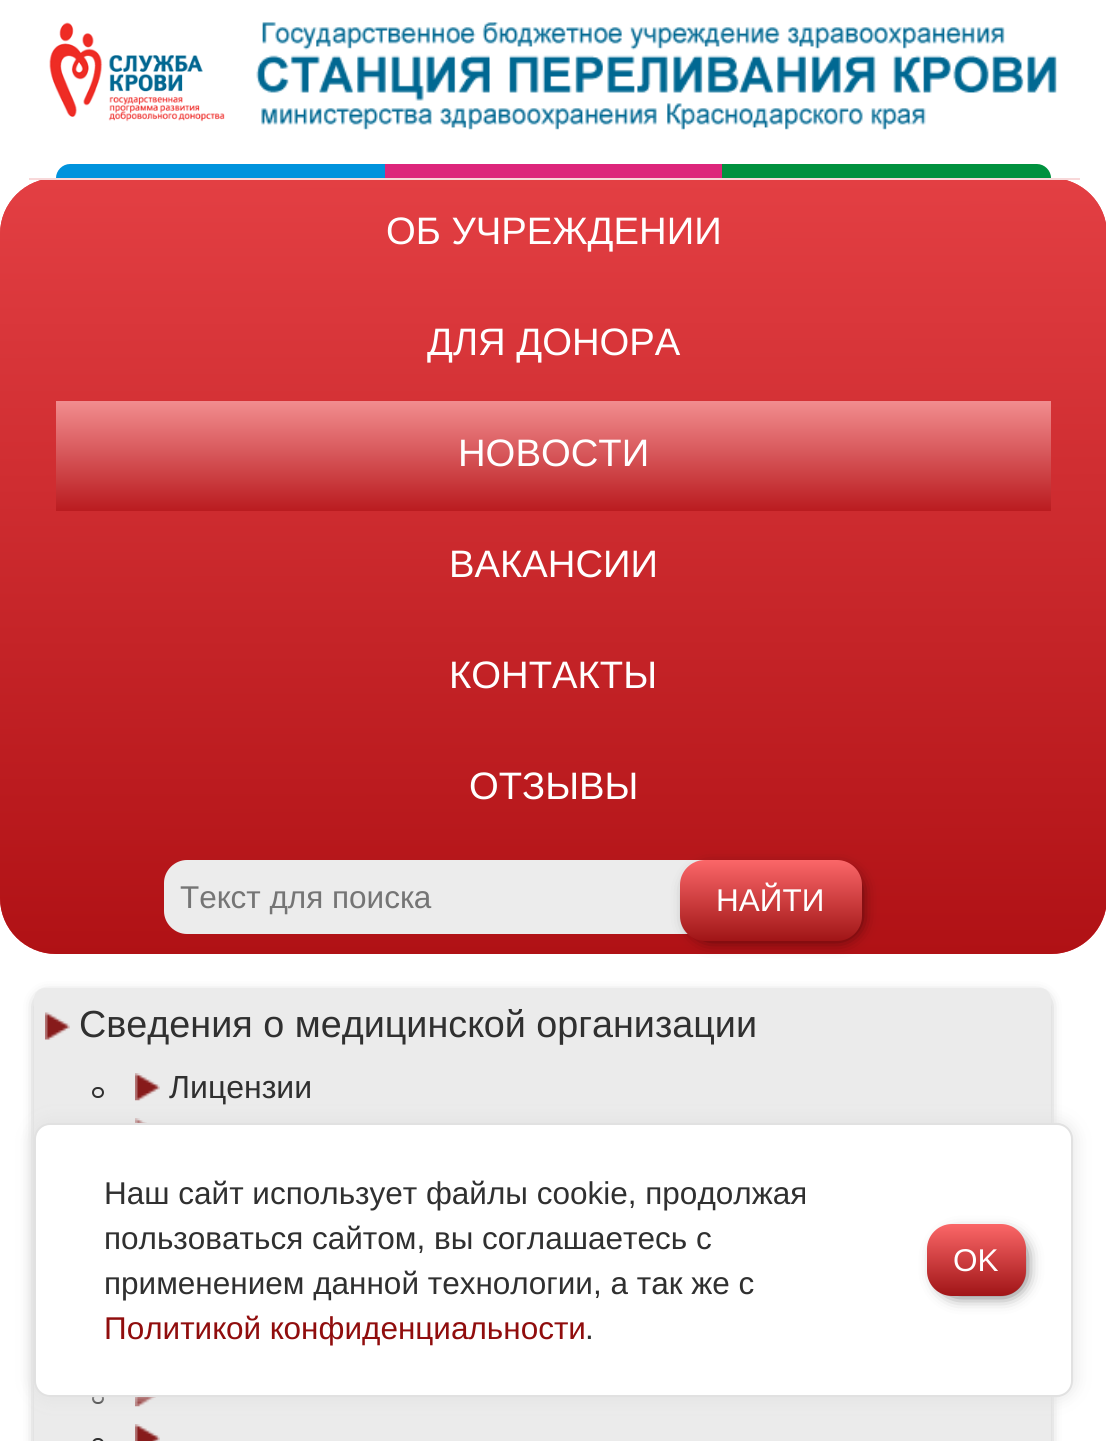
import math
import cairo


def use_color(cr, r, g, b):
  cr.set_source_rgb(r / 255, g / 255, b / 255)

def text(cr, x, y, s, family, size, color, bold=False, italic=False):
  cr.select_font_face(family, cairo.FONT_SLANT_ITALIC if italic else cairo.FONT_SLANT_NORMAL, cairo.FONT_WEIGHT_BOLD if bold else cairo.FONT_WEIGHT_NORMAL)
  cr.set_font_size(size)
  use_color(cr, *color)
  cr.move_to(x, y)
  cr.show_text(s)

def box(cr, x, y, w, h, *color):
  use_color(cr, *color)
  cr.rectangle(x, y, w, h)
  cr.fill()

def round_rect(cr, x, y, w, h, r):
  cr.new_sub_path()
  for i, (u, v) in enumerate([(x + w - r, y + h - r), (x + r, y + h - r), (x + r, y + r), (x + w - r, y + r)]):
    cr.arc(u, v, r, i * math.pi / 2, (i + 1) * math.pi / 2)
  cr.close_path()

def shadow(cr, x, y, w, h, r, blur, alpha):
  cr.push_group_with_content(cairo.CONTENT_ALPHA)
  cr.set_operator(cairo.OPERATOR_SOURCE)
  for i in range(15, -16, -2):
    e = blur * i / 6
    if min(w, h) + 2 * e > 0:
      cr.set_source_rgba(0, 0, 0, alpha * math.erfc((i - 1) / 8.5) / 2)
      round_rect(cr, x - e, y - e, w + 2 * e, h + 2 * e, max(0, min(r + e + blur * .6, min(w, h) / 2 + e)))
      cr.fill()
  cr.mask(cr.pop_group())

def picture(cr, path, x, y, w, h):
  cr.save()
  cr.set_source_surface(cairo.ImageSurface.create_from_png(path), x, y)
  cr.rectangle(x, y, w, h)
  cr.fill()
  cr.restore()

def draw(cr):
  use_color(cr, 255, 255, 255)
  cr.paint()
  picture(cr, "img_01.png", 49, 22, 176, 100)
  picture(cr, "img_02.png", 256, 22, 801, 108)
  use_color(cr, 0, 147, 221)
  cr.new_path()
  cr.move_to(70, 164)
  cr.line_to(385, 164)
  cr.line_to(385, 178)
  cr.line_to(56, 178)
  cr.curve_to(56, 170.5, 62.5, 164, 70, 164)
  cr.close_path()
  cr.fill()
  box(cr, 385, 164, 337, 14, 221, 38, 123)
  use_color(cr, 0, 145, 62)
  cr.new_path()
  cr.move_to(722, 164)
  cr.line_to(1037, 164)
  cr.curve_to(1044.5, 164, 1051, 170.5, 1051, 178)
  cr.line_to(722, 178)
  cr.close_path()
  cr.fill()
  use_color(cr, 227, 63, 67)
  round_rect(cr, 0, 178, 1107, 776, 56)
  cr.fill()
  cr.save()
  round_rect(cr, 0, 178, 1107, 776, 56)
  cr.clip()
  gradient = cairo.LinearGradient(553, 180, 554, 954)
  gradient.add_color_stop_rgba(0, 0.89, 0.247, 0.263, 1)
  gradient.add_color_stop_rgba(1, 0.69, 0.067, 0.082, 1)
  cr.set_source(gradient)
  cr.new_path()
  cr.move_to(0, 180)
  cr.line_to(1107, 180)
  cr.line_to(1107, 898)
  cr.curve_to(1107, 929, 1082, 954, 1051, 954)
  cr.line_to(56, 954)
  cr.curve_to(25, 954, 0, 929, 0, 898)
  cr.close_path()
  cr.fill()
  cr.restore()
  box(cr, 29, 178, 1051, 2, 248, 216, 217)
  gradient = cairo.LinearGradient(554, 400, 554, 511)
  gradient.add_color_stop_rgba(0, 0.949, 0.557, 0.565, 1)
  gradient.add_color_stop_rgba(1, 0.729, 0.106, 0.122, 1)
  cr.set_source(gradient)
  cr.rectangle(56, 401, 995, 110)
  cr.fill()
  use_color(cr, 236, 236, 236)
  cr.new_path()
  cr.move_to(187, 860)
  cr.line_to(707, 860)
  cr.line_to(707, 934)
  cr.line_to(187, 934)
  cr.curve_to(174.5, 934, 164, 923.5, 164, 911)
  cr.line_to(164, 883)
  cr.curve_to(164, 870.5, 174.5, 860, 187, 860)
  cr.close_path()
  cr.fill()
  use_color(cr, 0, 0, 0)
  shadow(cr, 693, 873, 164, 63, 16, 9, 1)
  gradient = cairo.LinearGradient(771, 860, 771, 941)
  gradient.add_color_stop_rgba(0, 0.984, 0.404, 0.408, 1)
  gradient.add_color_stop_rgba(1, 0.627, 0.082, 0.09, 1)
  cr.set_source(gradient)
  round_rect(cr, 680, 860, 182, 81, 25)
  cr.fill()
  use_color(cr, 0, 0, 0)
  shadow(cr, 43, 1001, 999, 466, 2, 8, 1)
  use_color(cr, 235, 235, 235)
  round_rect(cr, 34, 988, 1017, 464, 11)
  cr.fill()
  picture(cr, "img_03.png", 45, 1012, 25, 28)
  round_rect(cr, 93, 1088, 10, 9, 4.5)
  use_color(cr, 48, 48, 48)
  cr.stroke()
  picture(cr, "img_04.png", 135, 1073, 25, 28)
  picture(cr, "img_05.png", 135, 1118, 12, 5)
  round_rect(cr, 93, 1394, 10, 9, 4.5)
  cr.stroke()
  picture(cr, "img_06.png", 135, 1397, 21, 10)
  picture(cr, "img_07.png", 135, 1424, 25, 17)
  round_rect(cr, 93, 1439, 10, 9, 4.5)
  cr.stroke()
  use_color(cr, 225, 225, 225)
  shadow(cr, 34, 1123, 1039, 274, 16, 9, 1)
  use_color(cr, 255, 255, 255)
  round_rect(cr, 35, 1124, 1037, 272, 15)
  cr.fill_preserve()
  use_color(cr, 225, 225, 225)
  cr.stroke()
  use_color(cr, 0, 0, 0)
  shadow(cr, 941, 1238, 81, 54, 16, 9, 1)
  gradient = cairo.LinearGradient(977, 1224, 977, 1296)
  gradient.add_color_stop_rgba(0, 0.984, 0.404, 0.408, 1)
  gradient.add_color_stop_rgba(1, 0.627, 0.082, 0.09, 1)
  cr.set_source(gradient)
  round_rect(cr, 927, 1224, 99, 72, 25)
  cr.fill()
  text(cr, 386, 244, "ОБ УЧРЕЖДЕНИИ", "Liberation Sans", 38.25, (255, 255, 255))
  text(cr, 427, 355, "ДЛЯ ДОНОРА", "Liberation Sans", 38.25, (255, 255, 255))
  text(cr, 458, 466, "НОВОСТИ", "Liberation Sans", 38.25, (255, 255, 255))
  text(cr, 449, 577, "ВАКАНСИИ", "Liberation Sans", 38.25, (255, 255, 255))
  text(cr, 449, 688, "КОНТАКТЫ", "Liberation Sans", 38.25, (255, 255, 255))
  text(cr, 469, 799, "ОТЗЫВЫ", "Liberation Sans", 38.25, (255, 255, 255))
  text(cr, 180, 908, "Текст для поиска", "Liberation Sans", 31.5, (117, 117, 117))
  text(cr, 716, 911, "НАЙТИ", "Liberation Sans", 31.5, (255, 255, 255))
  text(cr, 79, 1037, "Сведения о медицинской организации", "Liberation Sans", 37.75, (48, 48, 48))
  text(cr, 169, 1098, "Лицензии", "Liberation Sans", 32, (48, 48, 48))
  text(cr, 104, 1204, "Наш сайт использует файлы cookie, продолжая", "Liberation Sans", 31.5, (48, 48, 48))
  text(cr, 104, 1249, "пользоваться сайтом, вы соглашаетесь с", "Liberation Sans", 31.5, (48, 48, 48))
  text(cr, 104, 1294, "применением данной технологии, а так же с", "Liberation Sans", 31.5, (48, 48, 48))
  text(cr, 104, 1339, "Политикой конфиденциальности", "Liberation Sans", 31.5, (144, 13, 13))
  text(cr, 585, 1339, ".", "Liberation Sans", 31.5, (48, 48, 48))
  text(cr, 953, 1271, "OK", "Liberation Sans", 31.5, (255, 255, 255))


surface = cairo.ImageSurface(cairo.FORMAT_RGB24, 1106, 1441)
cr = cairo.Context(surface)
options = cairo.FontOptions()
options.set_hint_metrics(cairo.HINT_METRICS_OFF)
options.set_hint_style(cairo.HINT_STYLE_NONE)
cr.set_font_options(options)
cr.set_miter_limit(4)
draw(cr)
surface.write_to_png("out.png")
